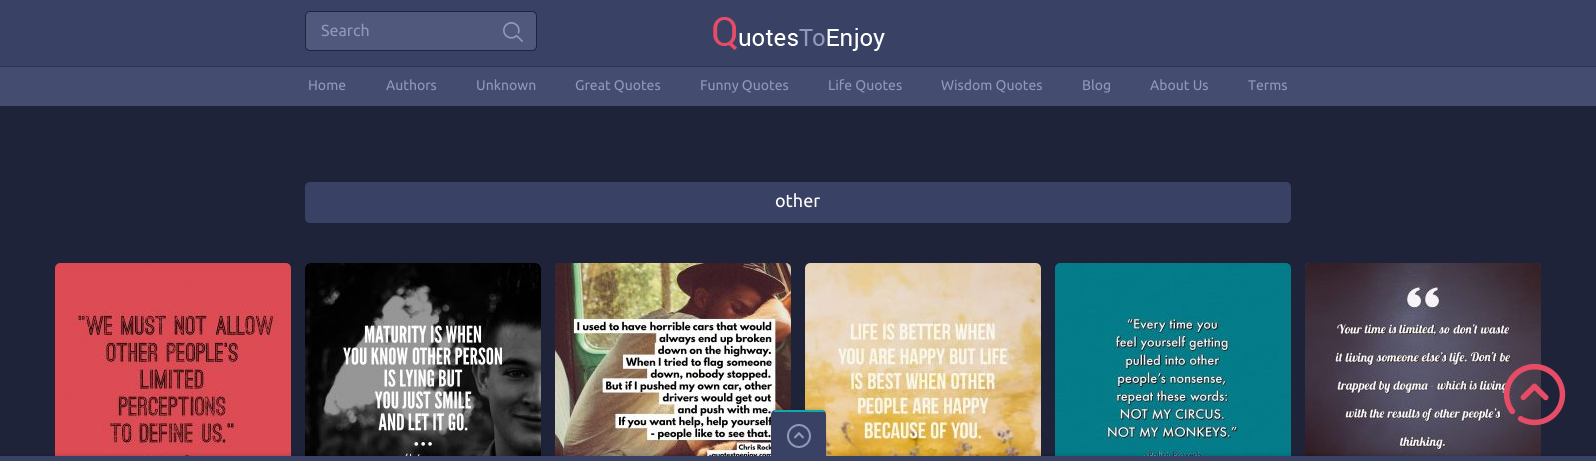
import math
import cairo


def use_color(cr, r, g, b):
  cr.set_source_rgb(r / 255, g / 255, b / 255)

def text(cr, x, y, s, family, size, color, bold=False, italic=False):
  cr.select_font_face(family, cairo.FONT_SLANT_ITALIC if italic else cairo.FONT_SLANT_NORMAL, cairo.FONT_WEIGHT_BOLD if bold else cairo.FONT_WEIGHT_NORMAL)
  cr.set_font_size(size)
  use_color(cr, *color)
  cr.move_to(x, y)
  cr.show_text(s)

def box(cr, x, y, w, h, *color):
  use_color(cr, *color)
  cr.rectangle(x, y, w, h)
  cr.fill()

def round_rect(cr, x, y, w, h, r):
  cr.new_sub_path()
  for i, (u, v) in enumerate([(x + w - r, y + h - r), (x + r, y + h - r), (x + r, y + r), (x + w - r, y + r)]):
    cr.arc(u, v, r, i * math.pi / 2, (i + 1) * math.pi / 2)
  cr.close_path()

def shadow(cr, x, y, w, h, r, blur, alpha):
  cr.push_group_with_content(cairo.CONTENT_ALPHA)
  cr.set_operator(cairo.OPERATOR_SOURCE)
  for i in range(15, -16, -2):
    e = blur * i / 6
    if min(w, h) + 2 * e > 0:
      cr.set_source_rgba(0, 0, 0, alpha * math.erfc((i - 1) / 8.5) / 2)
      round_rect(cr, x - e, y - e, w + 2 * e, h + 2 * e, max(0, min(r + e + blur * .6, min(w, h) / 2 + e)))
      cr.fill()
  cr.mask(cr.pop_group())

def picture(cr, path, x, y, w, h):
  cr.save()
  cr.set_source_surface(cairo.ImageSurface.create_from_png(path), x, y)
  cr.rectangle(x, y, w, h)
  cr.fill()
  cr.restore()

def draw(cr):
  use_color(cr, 30, 35, 58)
  cr.paint()
  box(cr, 0, 0, 1596, 66, 57, 66, 100)
  use_color(cr, 80, 89, 123)
  round_rect(cr, 305.5, 11.5, 231, 39, 4.5)
  cr.fill_preserve()
  use_color(cr, 31, 37, 61)
  cr.set_line_width(1)
  cr.stroke()
  picture(cr, "img_01.png", 503, 22, 20, 20)
  picture(cr, "img_02.png", 713, 17, 172, 34)
  box(cr, 0, 67, 1596, 39, 68, 77, 112)
  box(cr, 0, 66, 1596, 1, 47, 53, 82)
  use_color(cr, 57, 66, 100)
  round_rect(cr, 305, 182, 986, 41, 5)
  cr.fill()
  round_rect(cr, 55, 263, 236, 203, 5)
  cr.fill()
  picture(cr, "img_03.png", 55, 263, 236, 193)
  round_rect(cr, 305, 263, 236, 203, 5)
  cr.fill()
  picture(cr, "img_04.png", 305, 263, 236, 193)
  round_rect(cr, 555, 263, 236, 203, 5)
  cr.fill()
  picture(cr, "img_05.png", 555, 263, 236, 193)
  round_rect(cr, 805, 263, 236, 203, 5)
  cr.fill()
  picture(cr, "img_06.png", 805, 263, 236, 193)
  round_rect(cr, 1055, 263, 236, 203, 5)
  cr.fill()
  picture(cr, "img_07.png", 1055, 263, 236, 193)
  round_rect(cr, 1305, 263, 236, 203, 5)
  cr.fill()
  picture(cr, "img_08.png", 1305, 263, 236, 193)
  use_color(cr, 0, 0, 0)
  shadow(cr, 0, 454, 1596, 5, 0, 1, 0.1)
  picture(cr, "img_09.png", 1503, 363, 63, 63)
  box(cr, 0, 456, 1596, 5, 57, 66, 100)
  use_color(cr, 0, 0, 0)
  shadow(cr, 771, 408, 55, 46, 5, 1, 0.1)
  use_color(cr, 57, 66, 100)
  cr.new_path()
  cr.move_to(776, 410)
  cr.line_to(821, 410)
  cr.curve_to(824, 410, 826, 412, 826, 415)
  cr.line_to(826, 456)
  cr.line_to(771, 456)
  cr.line_to(771, 415)
  cr.curve_to(771, 412, 773, 410, 776, 410)
  cr.close_path()
  cr.fill()
  picture(cr, "img_10.png", 787, 424, 24, 24)
  box(cr, 774, 410, 50, 2, 17, 168, 171)
  text(cr, 321, 36, "Search", "Ubuntu", 16, (144, 153, 183))
  text(cr, 308, 90, "Home", "Ubuntu", 14, (144, 153, 183))
  text(cr, 386, 90, "Authors", "Ubuntu", 14, (144, 153, 183))
  text(cr, 476, 90, "Unknown", "Ubuntu", 14, (144, 153, 183))
  text(cr, 575, 90, "Great Quotes", "Ubuntu", 14, (144, 153, 183))
  text(cr, 700, 90, "Funny Quotes", "Ubuntu", 14, (144, 153, 183))
  text(cr, 828, 90, "Life Quotes", "Ubuntu", 14, (144, 153, 183))
  text(cr, 941, 90, "Wisdom Quotes", "Ubuntu", 14, (144, 153, 183))
  text(cr, 1082, 90, "Blog", "Ubuntu", 14, (144, 153, 183))
  text(cr, 1150, 90, "About Us", "Ubuntu", 14, (144, 153, 183))
  text(cr, 1248, 90, "Terms", "Ubuntu", 14, (144, 153, 183))
  text(cr, 775, 207, "other", "Ubuntu", 18, (255, 255, 255))


surface = cairo.ImageSurface(cairo.FORMAT_RGB24, 1596, 461)
cr = cairo.Context(surface)
options = cairo.FontOptions()
options.set_hint_metrics(cairo.HINT_METRICS_OFF)
options.set_hint_style(cairo.HINT_STYLE_NONE)
cr.set_font_options(options)
cr.set_miter_limit(4)
draw(cr)
surface.write_to_png("out.png")
